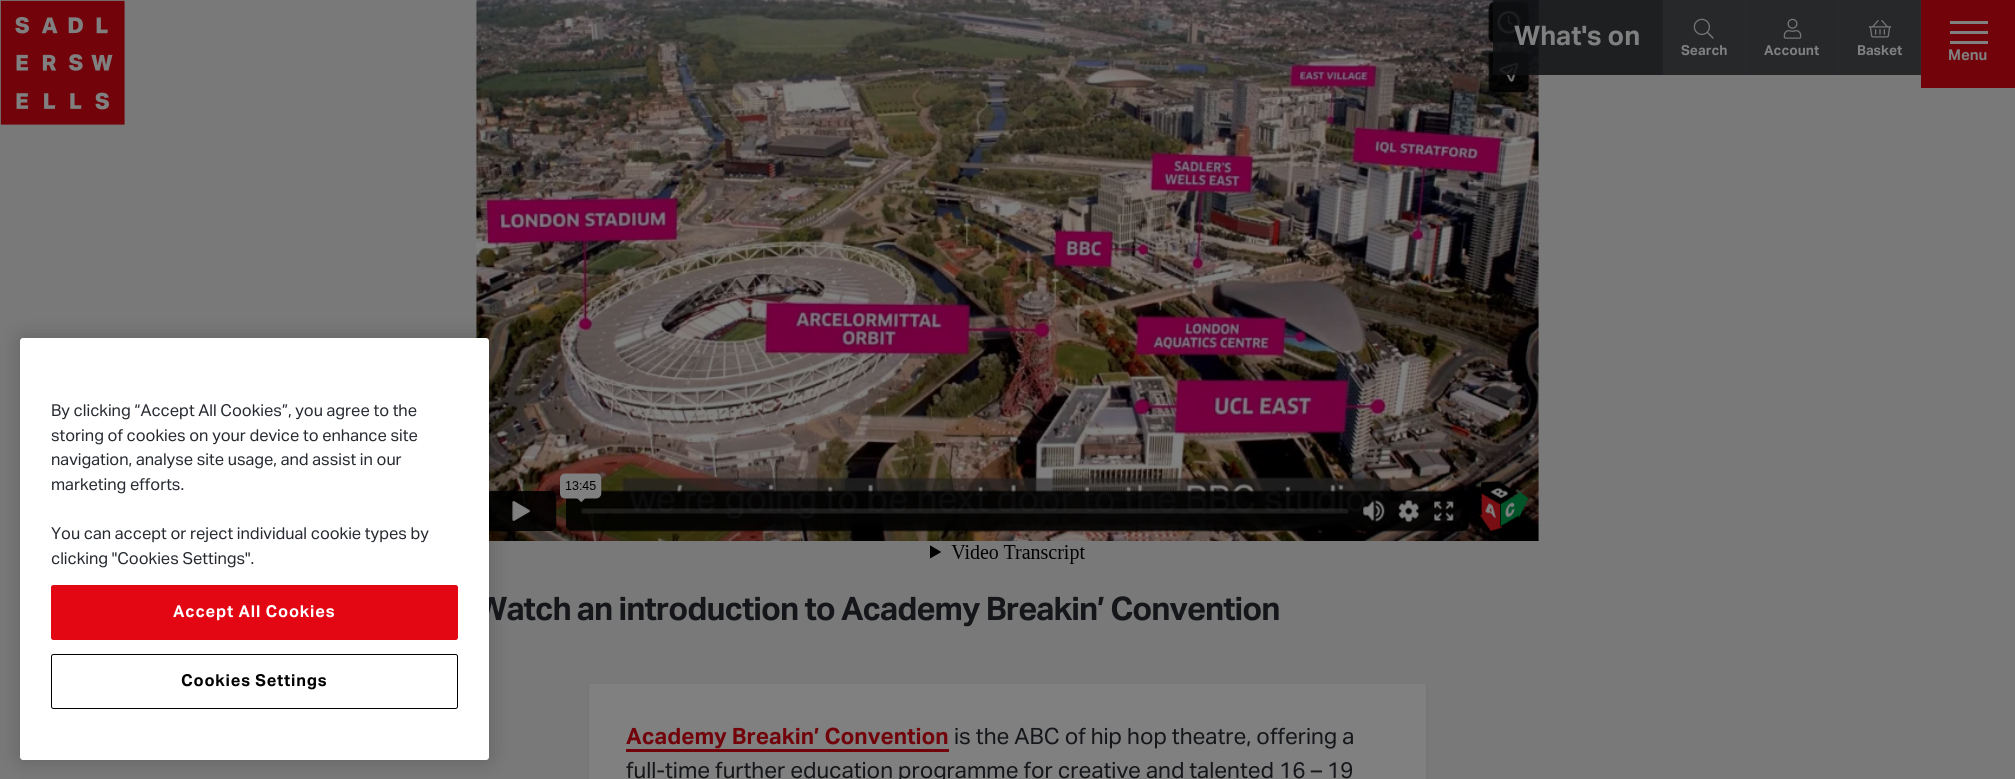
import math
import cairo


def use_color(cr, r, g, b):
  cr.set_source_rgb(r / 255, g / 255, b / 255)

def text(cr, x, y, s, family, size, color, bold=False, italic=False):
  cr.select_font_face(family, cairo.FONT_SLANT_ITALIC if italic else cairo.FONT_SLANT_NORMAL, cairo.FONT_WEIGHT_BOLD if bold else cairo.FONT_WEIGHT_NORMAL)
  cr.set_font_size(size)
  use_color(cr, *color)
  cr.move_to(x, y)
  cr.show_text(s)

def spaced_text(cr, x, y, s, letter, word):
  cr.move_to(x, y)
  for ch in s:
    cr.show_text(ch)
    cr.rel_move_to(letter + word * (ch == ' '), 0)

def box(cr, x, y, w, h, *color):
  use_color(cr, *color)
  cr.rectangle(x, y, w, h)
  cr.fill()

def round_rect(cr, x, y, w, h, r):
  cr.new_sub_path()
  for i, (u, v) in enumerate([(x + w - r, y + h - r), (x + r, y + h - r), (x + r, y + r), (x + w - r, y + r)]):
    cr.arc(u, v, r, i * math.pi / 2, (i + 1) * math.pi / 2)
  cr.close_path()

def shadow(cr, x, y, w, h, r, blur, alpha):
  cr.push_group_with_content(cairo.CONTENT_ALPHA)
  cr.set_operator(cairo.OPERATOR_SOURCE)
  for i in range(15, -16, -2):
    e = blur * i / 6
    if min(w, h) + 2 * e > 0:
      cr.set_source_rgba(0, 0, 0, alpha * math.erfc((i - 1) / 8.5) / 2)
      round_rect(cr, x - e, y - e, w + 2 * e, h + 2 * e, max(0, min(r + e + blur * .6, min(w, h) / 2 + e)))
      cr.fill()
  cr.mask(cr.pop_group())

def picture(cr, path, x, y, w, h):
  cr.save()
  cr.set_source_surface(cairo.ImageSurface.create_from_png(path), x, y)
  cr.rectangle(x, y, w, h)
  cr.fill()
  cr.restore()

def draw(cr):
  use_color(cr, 121, 121, 121)
  cr.paint()
  picture(cr, "img_01.png", 0, 0, 125, 125)
  picture(cr, "img_05.png", 476, 0, 1063, 564)
  cr.set_source_rgba(0.055, 0.063, 0.071, 0.85)
  cr.rectangle(1493, 0, 170, 75)
  cr.fill()
  box(cr, 1661, 0, 1, 75, 31, 34, 39)
  box(cr, 1663, 0, 82, 75, 39, 40, 42)
  box(cr, 1745, 0, 1, 75, 40, 43, 47)
  picture(cr, "img_02.png", 1693, 18, 21, 21)
  box(cr, 1746, 0, 92, 75, 39, 40, 42)
  box(cr, 1838, 0, 1, 75, 40, 43, 47)
  picture(cr, "img_03.png", 1783, 18, 19, 21)
  box(cr, 1839, 0, 81, 75, 39, 40, 42)
  box(cr, 1920, 0, 1, 75, 40, 43, 47)
  picture(cr, "img_04.png", 1868, 20, 24, 18)
  box(cr, 1921, 0, 94, 88, 114, 3, 10)
  box(cr, 1950, 21, 38, 3, 128, 128, 128)
  box(cr, 1950, 31, 38, 3, 128, 128, 128)
  box(cr, 1950, 41, 38, 3, 128, 128, 128)
  use_color(cr, 0, 0, 0)
  shadow(cr, 20, 338, 469, 422, 3, 11, 0.2)
  shadow(cr, 589, 686, 837, 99, 0, 2, 0.09)
  box(cr, 589, 684, 837, 95, 128, 128, 128)
  box(cr, 626, 749, 323, 3, 114, 3, 10)
  text(cr, 1514, 45, "What's on", "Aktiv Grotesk", 27, (128, 128, 128), bold=True)
  text(cr, 1681, 55, "Search", "Aktiv Grotesk", 13.75, (128, 128, 128), bold=True)
  text(cr, 1764, 55, "Account", "Aktiv Grotesk", 13.75, (128, 128, 128), bold=True)
  text(cr, 1857, 55, "Basket", "Aktiv Grotesk", 13.75, (128, 128, 128), bold=True)
  text(cr, 1948, 60, "Menu", "Aktiv Grotesk", 15, (128, 128, 128), bold=True)
  cr.set_font_size(32.4)
  use_color(cr, 20, 22, 25)
  spaced_text(cr, 476, 620, "Watch an introduction to Academy Breakin’ Convention", -0.97, 0)
  use_color(cr, 255, 255, 255)
  round_rect(cr, 20, 338, 469, 422, 3)
  cr.fill()
  round_rect(cr, 51.5, 654.5, 406, 54, 2)
  use_color(cr, 0, 0, 0)
  cr.set_line_width(1)
  cr.stroke()
  cr.set_font_size(16.4)
  spaced_text(cr, 181, 686, "Cookies Settings", 0.8, 0)
  use_color(cr, 227, 6, 19)
  round_rect(cr, 51.5, 585.5, 406, 54, 2)
  cr.fill_preserve()
  cr.stroke()
  use_color(cr, 255, 255, 255)
  spaced_text(cr, 173, 617, "Accept All Cookies", 0.8, 0)
  text(cr, 51, 564, "clicking \"Cookies Settings\".", "Aktiv Grotesk", 16.4, (39, 43, 49))
  text(cr, 51, 539, "You can accept or reject individual cookie types by", "Aktiv Grotesk", 16.4, (39, 43, 49))
  text(cr, 51, 490, "marketing efforts.", "Aktiv Grotesk", 16.4, (39, 43, 49))
  text(cr, 51, 465, "navigation, analyse site usage, and assist in our", "Aktiv Grotesk", 16.4, (39, 43, 49))
  text(cr, 51, 441, "storing of cookies on your device to enhance site", "Aktiv Grotesk", 16.4, (39, 43, 49))
  text(cr, 51, 416, "By clicking “Accept All Cookies”, you agree to the", "Aktiv Grotesk", 16.4, (39, 43, 49))
  text(cr, 626, 744, "Academy Breakin’ Convention", "Aktiv Grotesk", 22.5, (114, 3, 10), bold=True)
  text(cr, 954, 744, "is the ABC of hip hop theatre, offering a", "Aktiv Grotesk", 22.5, (20, 22, 25))
  text(cr, 626, 778, "full-time further education programme for creative and talented 16 – 19", "Aktiv Grotesk", 22.5, (20, 22, 25))


surface = cairo.ImageSurface(cairo.FORMAT_RGB24, 2015, 779)
cr = cairo.Context(surface)
options = cairo.FontOptions()
options.set_hint_metrics(cairo.HINT_METRICS_OFF)
options.set_hint_style(cairo.HINT_STYLE_NONE)
cr.set_font_options(options)
cr.set_miter_limit(4)
draw(cr)
surface.write_to_png("out.png")
